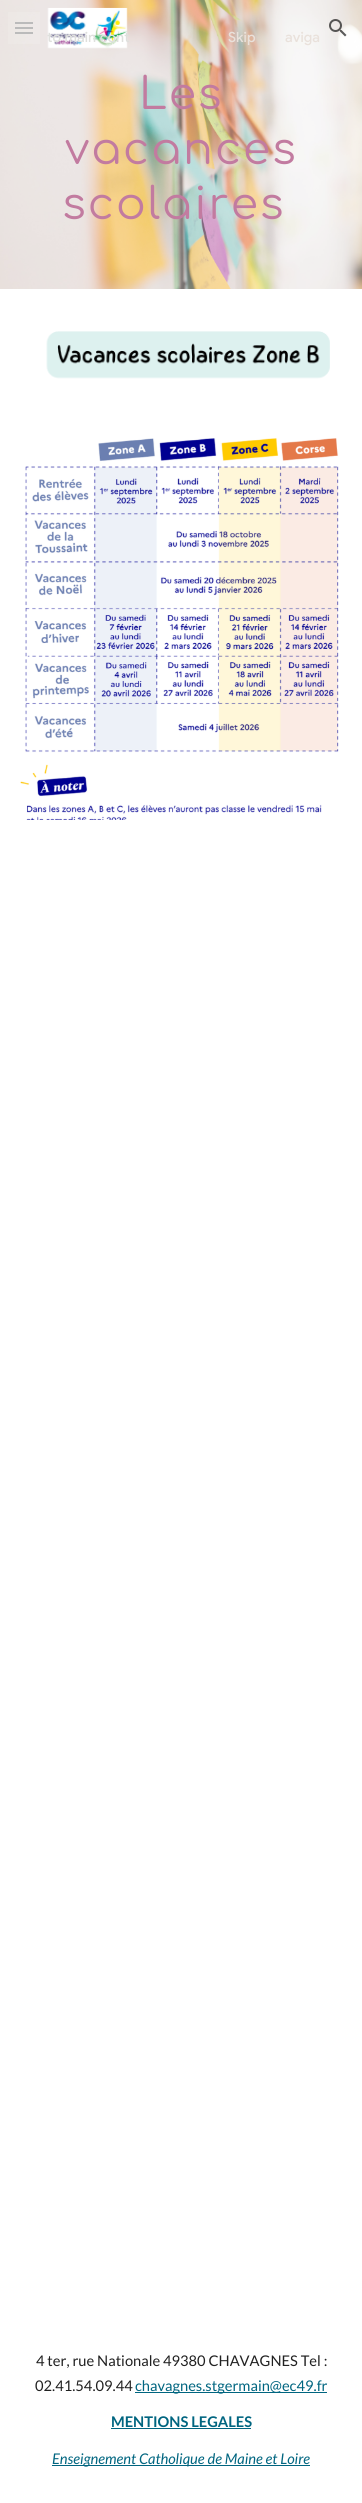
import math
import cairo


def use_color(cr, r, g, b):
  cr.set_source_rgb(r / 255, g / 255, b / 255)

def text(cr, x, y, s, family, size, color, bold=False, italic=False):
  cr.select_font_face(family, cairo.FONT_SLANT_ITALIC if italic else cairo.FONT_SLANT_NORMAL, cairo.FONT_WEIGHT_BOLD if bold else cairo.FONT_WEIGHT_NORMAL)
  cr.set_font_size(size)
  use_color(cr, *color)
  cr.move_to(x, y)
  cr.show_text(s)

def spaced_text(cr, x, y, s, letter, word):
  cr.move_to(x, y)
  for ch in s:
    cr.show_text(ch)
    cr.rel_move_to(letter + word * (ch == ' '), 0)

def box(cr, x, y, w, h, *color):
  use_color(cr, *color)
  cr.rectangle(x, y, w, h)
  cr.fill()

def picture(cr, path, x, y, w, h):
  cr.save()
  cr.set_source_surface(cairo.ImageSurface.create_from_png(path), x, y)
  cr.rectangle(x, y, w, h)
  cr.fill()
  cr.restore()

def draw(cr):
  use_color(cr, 255, 255, 255)
  cr.paint()
  picture(cr, "img_03.png", 0, 0, 362, 289)
  box(cr, 15, 22, 18, 2, 178, 178, 178)
  box(cr, 15, 27, 18, 2, 178, 178, 178)
  box(cr, 15, 32, 18, 2, 178, 178, 178)
  cr.set_source_rgba(1, 1, 1, 0.12)
  cr.rectangle(8, 12, 32, 32)
  cr.fill()
  picture(cr, "img_01.png", 47, 7, 81, 42)
  picture(cr, "img_02.png", 329, 19, 18, 18)
  picture(cr, "img_04.png", 46, 331, 284, 48)
  picture(cr, "img_05.png", 20, 438, 319, 382)
  box(cr, 135, 2392, 192, 1, 0, 101, 128)
  box(cr, 111, 2428, 140, 1, 0, 101, 128)
  box(cr, 52, 2465, 258, 1, 0, 101, 128)
  cr.select_font_face("Google Sans Medium")
  cr.set_font_size(14)
  use_color(cr, 223, 224, 221)
  spaced_text(cr, 47, 42, "to main cont", 0.1, 0)
  use_color(cr, 233, 225, 219)
  spaced_text(cr, 228, 42, "Skip", 0.1, 0)
  spaced_text(cr, 285, 42, "aviga", 0.1, 0)
  cr.select_font_face("Comfortaa")
  cr.set_font_size(44)
  use_color(cr, 194, 123, 160)
  spaced_text(cr, 139, 109, "Les", 2, 0)
  spaced_text(cr, 65, 164, "vacances", 2, 0)
  spaced_text(cr, 62, 219, "scolaires", 2, 0)
  text(cr, 36, 2366, "4 ter, rue Nationale 49380 CHAVAGNES Tel :", "Lato", 14.7, (33, 33, 33))
  text(cr, 35, 2391, "02.41.54.09.44", "Lato", 14.7, (33, 33, 33))
  text(cr, 135, 2391, "chavagnes.stgermain@ec49.fr", "Lato", 14.7, (0, 101, 128))
  text(cr, 111, 2427, "MENTIONS LEGALES", "Lato", 14.7, (0, 101, 128), bold=True)
  text(cr, 52, 2464, "Enseignement Catholique de Maine et Loire", "Lato", 14.7, (0, 101, 128), italic=True)


surface = cairo.ImageSurface(cairo.FORMAT_RGB24, 362, 2503)
cr = cairo.Context(surface)
options = cairo.FontOptions()
options.set_hint_metrics(cairo.HINT_METRICS_OFF)
options.set_hint_style(cairo.HINT_STYLE_NONE)
cr.set_font_options(options)
cr.set_miter_limit(4)
draw(cr)
surface.write_to_png("out.png")
